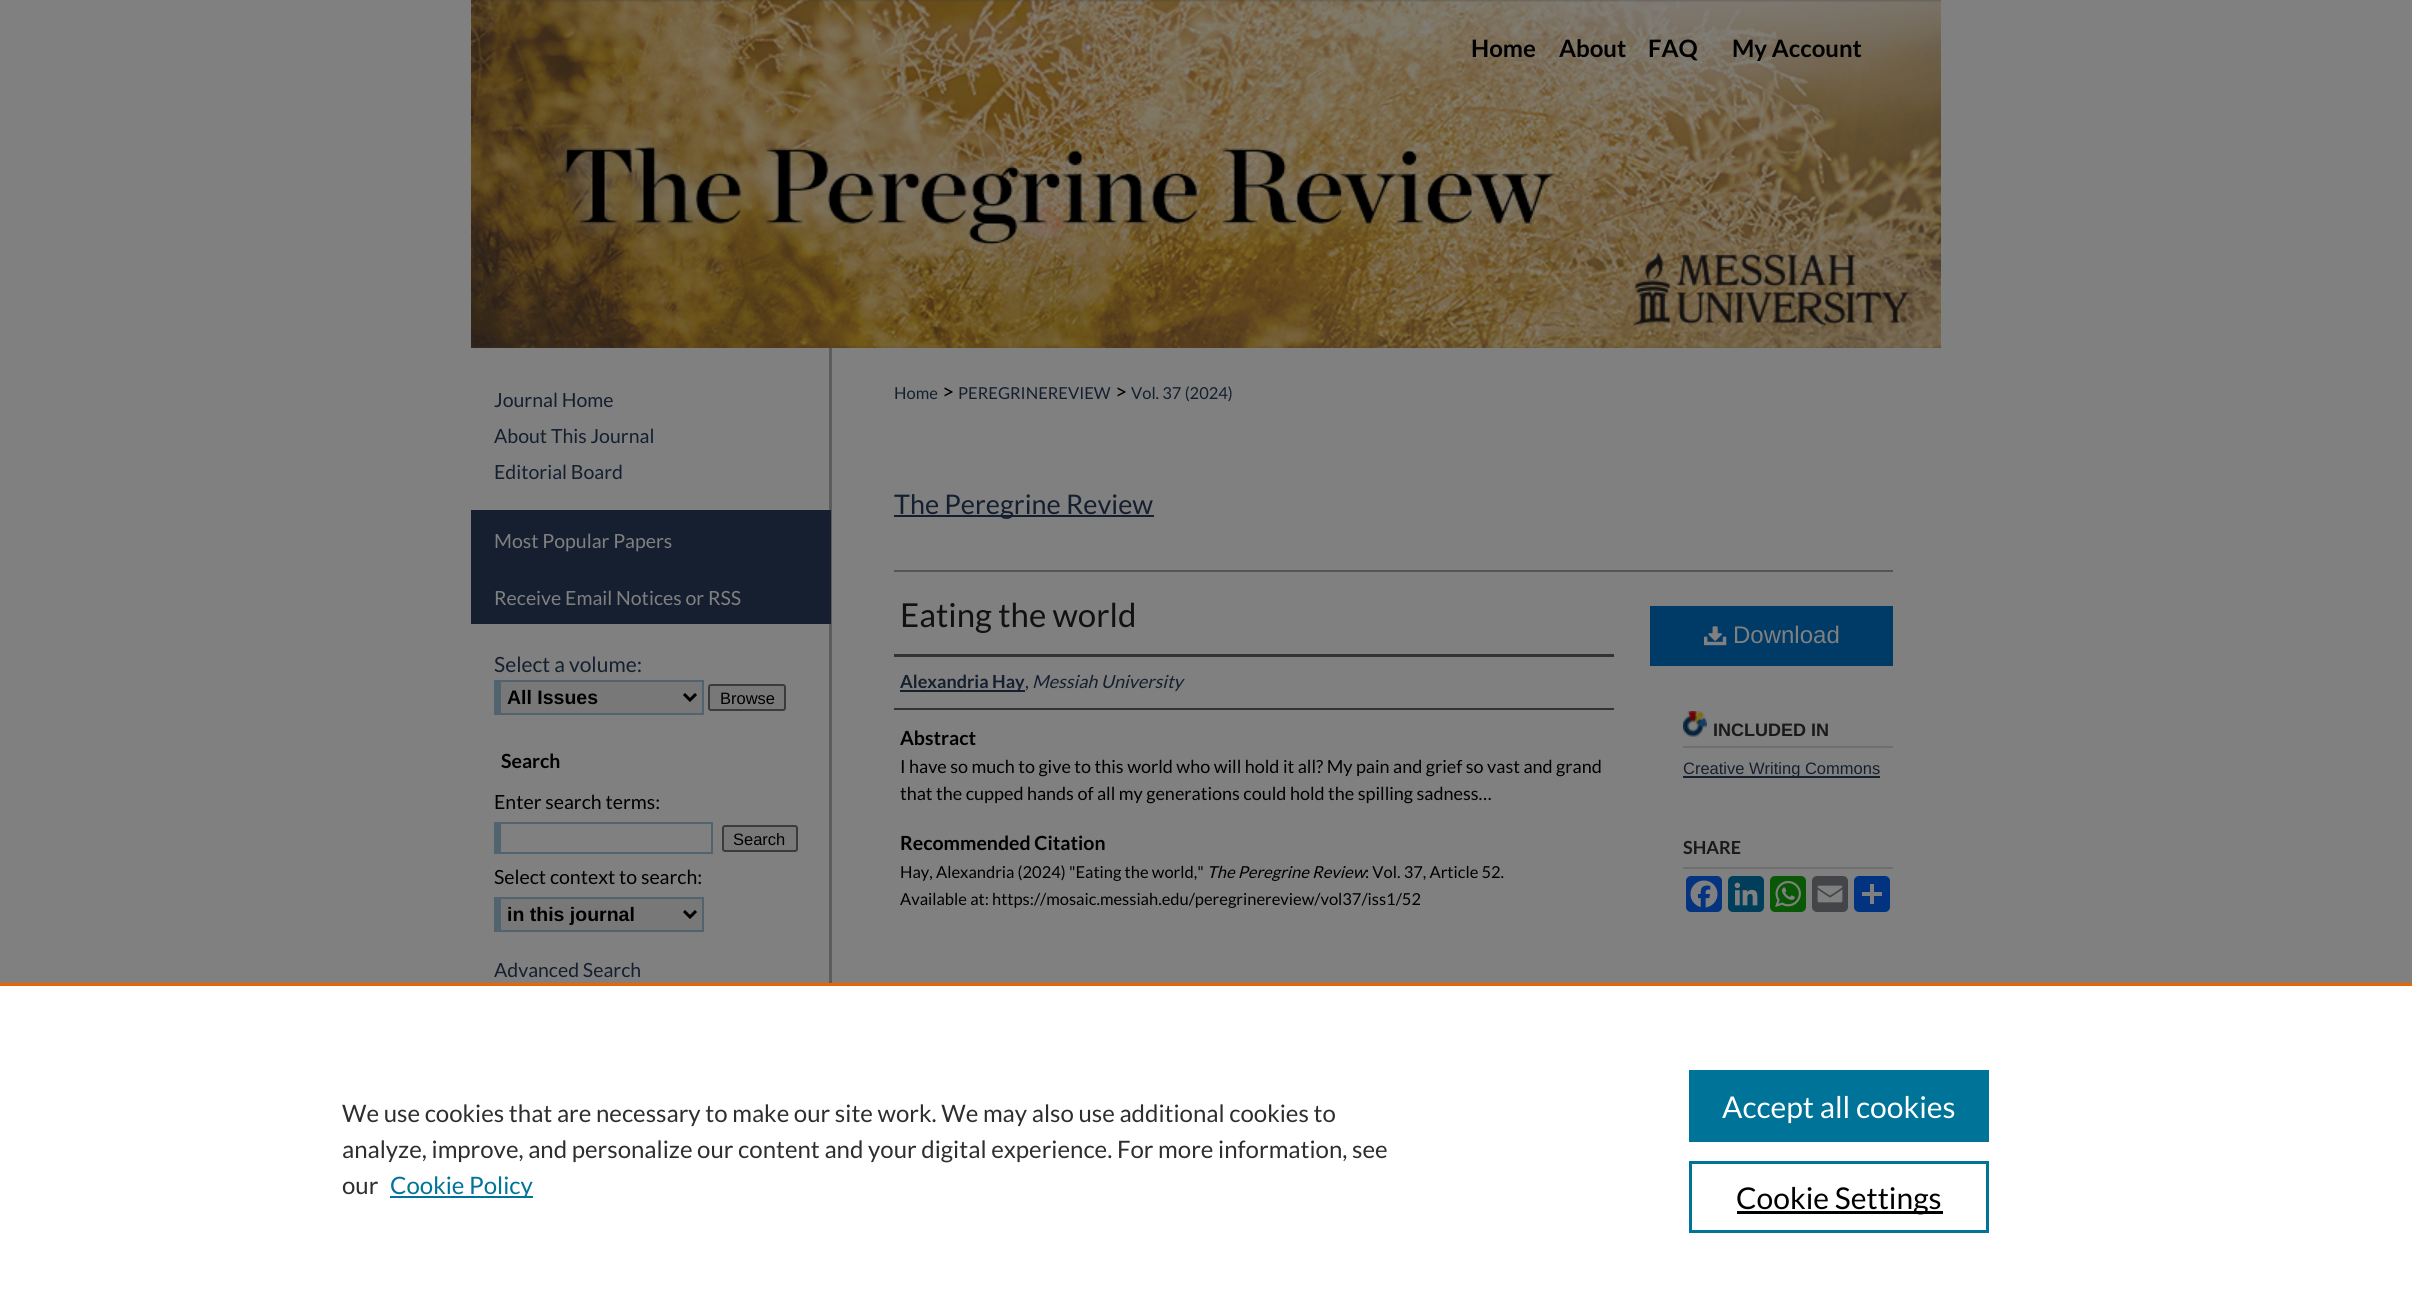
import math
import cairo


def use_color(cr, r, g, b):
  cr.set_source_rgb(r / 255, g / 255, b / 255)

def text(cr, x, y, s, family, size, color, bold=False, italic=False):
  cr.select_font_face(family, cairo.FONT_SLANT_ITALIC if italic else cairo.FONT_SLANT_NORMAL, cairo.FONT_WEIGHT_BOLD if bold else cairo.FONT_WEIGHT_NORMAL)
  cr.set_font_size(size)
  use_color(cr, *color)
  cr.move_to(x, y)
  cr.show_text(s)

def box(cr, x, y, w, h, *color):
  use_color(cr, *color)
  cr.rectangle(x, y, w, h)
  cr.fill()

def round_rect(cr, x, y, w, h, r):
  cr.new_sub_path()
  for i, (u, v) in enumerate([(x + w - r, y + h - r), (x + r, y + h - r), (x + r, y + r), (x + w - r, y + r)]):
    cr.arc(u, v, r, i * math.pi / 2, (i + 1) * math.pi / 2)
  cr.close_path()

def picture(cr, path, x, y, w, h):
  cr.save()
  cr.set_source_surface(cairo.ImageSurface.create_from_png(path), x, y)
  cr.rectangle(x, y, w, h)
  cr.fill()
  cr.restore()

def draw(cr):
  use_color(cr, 128, 128, 128)
  cr.paint()
  picture(cr, "img_01.png", 471, 0, 1470, 348)
  box(cr, 829, 348, 3, 635, 92, 92, 92)
  box(cr, 471, 510, 360, 114, 21, 31, 47)
  box(cr, 501, 682, 201, 31, 120, 120, 120)
  box(cr, 494, 680, 210, 2, 80, 99, 110)
  box(cr, 702, 680, 2, 34, 80, 99, 110)
  box(cr, 494, 713, 210, 2, 80, 99, 110)
  box(cr, 494, 680, 7, 34, 80, 99, 110)
  cr.new_path()
  cr.move_to(684, 694)
  cr.line_to(690, 700)
  cr.line_to(696, 694)
  use_color(cr, 0, 0, 0)
  cr.set_line_width(3)
  cr.stroke()
  use_color(cr, 120, 120, 120)
  round_rect(cr, 709, 685, 76, 25, 2)
  cr.fill_preserve()
  use_color(cr, 59, 59, 59)
  cr.set_line_width(2)
  cr.stroke()
  box(cr, 494, 822, 219, 2, 80, 99, 110)
  box(cr, 711, 822, 2, 32, 80, 99, 110)
  box(cr, 494, 852, 219, 2, 80, 99, 110)
  box(cr, 494, 822, 7, 32, 80, 99, 110)
  use_color(cr, 120, 120, 120)
  round_rect(cr, 723, 826, 74, 25, 2)
  cr.fill_preserve()
  use_color(cr, 59, 59, 59)
  cr.stroke()
  box(cr, 501, 899, 201, 31, 120, 120, 120)
  box(cr, 494, 897, 210, 2, 80, 99, 110)
  box(cr, 702, 897, 2, 35, 80, 99, 110)
  box(cr, 494, 930, 210, 2, 80, 99, 110)
  box(cr, 494, 897, 7, 35, 80, 99, 110)
  cr.new_path()
  cr.move_to(684, 911)
  cr.line_to(690, 917)
  cr.line_to(696, 911)
  use_color(cr, 0, 0, 0)
  cr.set_line_width(3)
  cr.stroke()
  box(cr, 894, 515, 260, 2, 20, 31, 47)
  box(cr, 894, 570, 999, 2, 85, 85, 85)
  box(cr, 894, 654, 720, 3, 51, 51, 51)
  box(cr, 894, 708, 720, 2, 51, 51, 51)
  box(cr, 900, 690, 125, 2, 20, 31, 47)
  box(cr, 1650, 606, 243, 60, 0, 58, 102)
  picture(cr, "img_02.png", 1704, 626, 23, 20)
  picture(cr, "img_03.png", 1683, 711, 24, 26)
  box(cr, 1683, 746, 210, 2, 111, 111, 111)
  box(cr, 1683, 776, 197, 2, 20, 31, 47)
  box(cr, 1683, 867, 210, 2, 111, 111, 111)
  use_color(cr, 4, 51, 128)
  round_rect(cr, 1686, 876, 36, 36, 5)
  cr.fill()
  picture(cr, "img_04.png", 1690, 880, 28, 28)
  use_color(cr, 0, 62, 91)
  round_rect(cr, 1728, 876, 36, 36, 5)
  cr.fill()
  picture(cr, "img_05.png", 1734, 882, 24, 24)
  use_color(cr, 9, 88, 5)
  round_rect(cr, 1770, 876, 36, 36, 5)
  cr.fill()
  picture(cr, "img_06.png", 1775, 881, 26, 26)
  use_color(cr, 68, 69, 72)
  round_rect(cr, 1812, 876, 36, 36, 5)
  cr.fill()
  picture(cr, "img_07.png", 1817, 885, 26, 18)
  use_color(cr, 1, 51, 128)
  round_rect(cr, 1854, 876, 36, 36, 5)
  cr.fill()
  box(cr, 1870, 884, 4, 20, 128, 128, 128)
  box(cr, 1862, 892, 20, 4, 128, 128, 128)
  box(cr, 0, 986, 2412, 326, 255, 255, 255)
  box(cr, 0, 983, 2412, 3, 235, 101, 0)
  box(cr, 390, 1196, 143, 2, 0, 115, 152)
  box(cr, 1689, 1070, 300, 72, 0, 115, 152)
  cr.rectangle(1690.5, 1162.5, 297, 69)
  cr.stroke()
  box(cr, 1737, 1211, 206, 3, 0, 0, 0)
  text(cr, 1471, 57, "Home", "Lato", 24, (0, 0, 0), bold=True)
  text(cr, 1559, 57, "About", "Lato", 24, (0, 0, 0), bold=True)
  text(cr, 1648, 57, "FAQ", "Lato", 24, (0, 0, 0), bold=True)
  text(cr, 1732, 57, "My Account", "Lato", 24, (0, 0, 0), bold=True)
  text(cr, 494, 407, "Journal Home", "Lato", 19.5, (20, 31, 47))
  text(cr, 494, 443, "About This Journal", "Lato", 19.5, (20, 31, 47))
  text(cr, 494, 479, "Editorial Board", "Lato", 19.5, (20, 31, 47))
  text(cr, 494, 548, "Most Popular Papers", "Lato", 19.5, (128, 128, 128))
  text(cr, 494, 605, "Receive Email Notices or RSS", "Lato", 19.5, (128, 128, 128))
  text(cr, 494, 672, "Select a volume:", "Lato", 21, (20, 31, 47))
  text(cr, 507, 704, "All Issues", "Liberation Sans", 19.5, (0, 0, 0), bold=True)
  text(cr, 720, 704, "Browse", "Liberation Sans", 16.5, (0, 0, 0))
  text(cr, 501, 768, "Search", "Lato", 19.5, (0, 0, 0), bold=True)
  text(cr, 494, 809, "Enter search terms:", "Lato", 19.5, (0, 0, 0))
  text(cr, 733, 845, "Search", "Liberation Sans", 16.5, (0, 0, 0))
  text(cr, 494, 884, "Select context to search:", "Lato", 19.5, (0, 0, 0))
  text(cr, 507, 921, "in this journal", "Liberation Sans", 19.5, (0, 0, 0), bold=True)
  text(cr, 494, 977, "Advanced Search", "Lato", 19.5, (20, 31, 47))
  text(cr, 894, 399, "Home", "Lato", 16.5, (20, 31, 47))
  text(cr, 942, 399, ">", "Lato", 21, (0, 0, 0))
  text(cr, 958, 399, "PEREGRINEREVIEW", "Lato", 16.5, (20, 31, 47))
  text(cr, 1115, 399, ">", "Lato", 21, (0, 0, 0))
  text(cr, 1131, 399, "Vol. 37 (2024)", "Lato", 16.5, (20, 31, 47))
  text(cr, 894, 514, "The Peregrine Review", "Lato", 27, (20, 31, 47))
  text(cr, 900, 627, "Eating the world", "Lato", 33, (17, 17, 17))
  text(cr, 900, 688, "Alexandria Hay", "Lato", 18, (20, 31, 47), bold=True)
  text(cr, 1025, 688, ",", "Lato", 18, (20, 31, 47))
  text(cr, 1032, 688, "Messiah University", "Lato", 18, (20, 31, 47), italic=True)
  text(cr, 900, 745, "Abstract", "Lato", 19.5, (0, 0, 0), bold=True)
  text(cr, 900, 773, "I have so much to give to this world who will hold it all? My pain and grief so vast and grand", "Lato", 18, (0, 0, 0))
  text(cr, 900, 800, "that the cupped hands of all my generations could hold the spilling sadness…", "Lato", 18, (0, 0, 0))
  text(cr, 900, 850, "Recommended Citation", "Lato", 19.5, (0, 0, 0), bold=True)
  text(cr, 900, 878, "Hay, Alexandria (2024) \"Eating the world,\"", "Lato", 16.5, (0, 0, 0))
  text(cr, 1207, 878, "The Peregrine Review", "Lato", 16.5, (0, 0, 0), italic=True)
  text(cr, 1365, 878, ": Vol. 37, Article 52.", "Lato", 16.5, (0, 0, 0))
  text(cr, 900, 905, "Available at: https://mosaic.messiah.edu/peregrinereview/vol37/iss1/52", "Lato", 16.5, (0, 0, 0))
  text(cr, 1733, 643, "Download", "Liberation Sans", 24, (128, 128, 128))
  text(cr, 1713, 736, "INCLUDED IN", "Liberation Sans", 18, (26, 26, 26), bold=True)
  text(cr, 1683, 774, "Creative Writing Commons", "Liberation Sans", 16.5, (20, 31, 47))
  text(cr, 1683, 854, "SHARE", "Lato", 18, (26, 26, 26), bold=True)
  text(cr, 342, 1122, "We use cookies that are necessary to make our site work. We may also use additional cookies to", "Lato", 24, (46, 46, 46))
  text(cr, 342, 1158, "analyze, improve, and personalize our content and your digital experience. For more information, see", "Lato", 24, (46, 46, 46))
  text(cr, 342, 1194, "our", "Lato", 24, (46, 46, 46))
  text(cr, 390, 1194, "Cookie Policy", "Lato", 24, (0, 115, 152))
  text(cr, 1722, 1118, "Accept all cookies", "Lato", 30, (255, 255, 255))
  text(cr, 1736, 1209, "Cookie Settings", "Lato", 30, (0, 0, 0))


surface = cairo.ImageSurface(cairo.FORMAT_RGB24, 2412, 1312)
cr = cairo.Context(surface)
options = cairo.FontOptions()
options.set_hint_metrics(cairo.HINT_METRICS_OFF)
options.set_hint_style(cairo.HINT_STYLE_NONE)
cr.set_font_options(options)
cr.set_miter_limit(4)
draw(cr)
surface.write_to_png("out.png")
